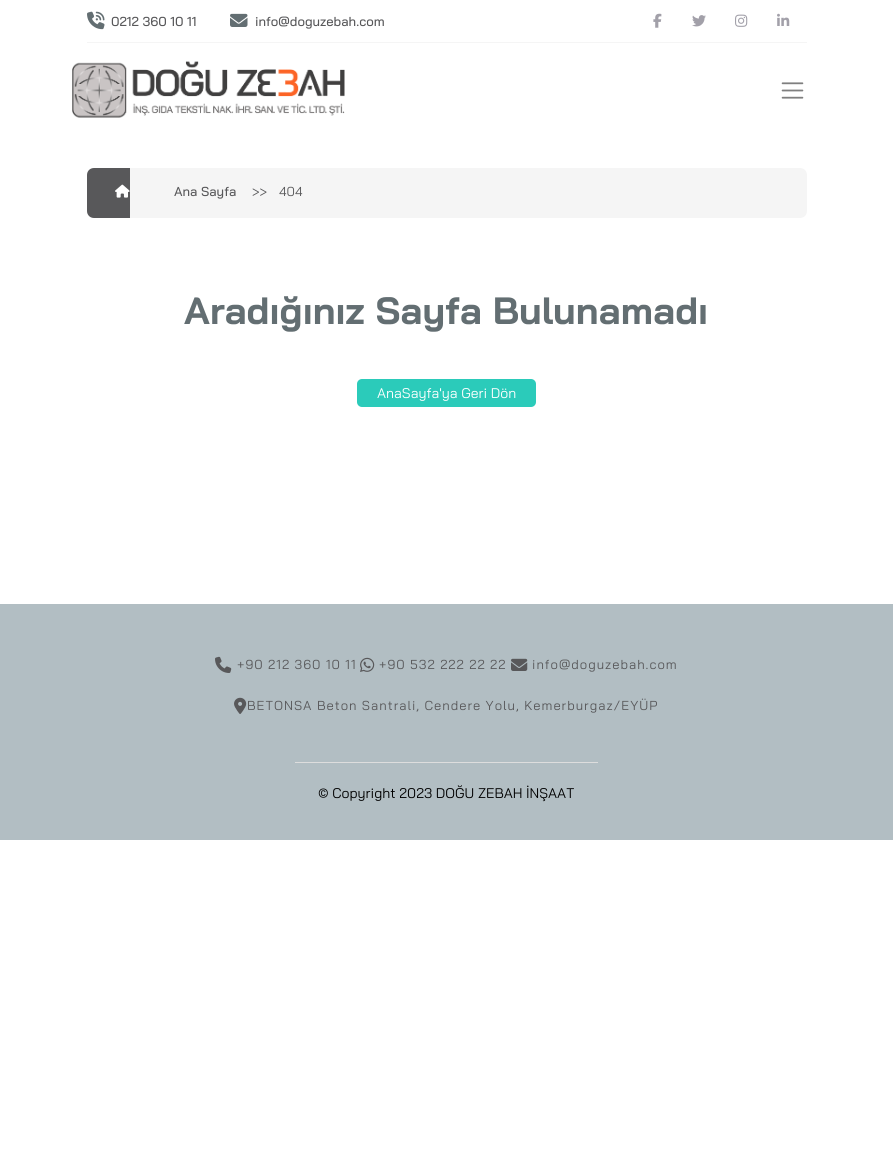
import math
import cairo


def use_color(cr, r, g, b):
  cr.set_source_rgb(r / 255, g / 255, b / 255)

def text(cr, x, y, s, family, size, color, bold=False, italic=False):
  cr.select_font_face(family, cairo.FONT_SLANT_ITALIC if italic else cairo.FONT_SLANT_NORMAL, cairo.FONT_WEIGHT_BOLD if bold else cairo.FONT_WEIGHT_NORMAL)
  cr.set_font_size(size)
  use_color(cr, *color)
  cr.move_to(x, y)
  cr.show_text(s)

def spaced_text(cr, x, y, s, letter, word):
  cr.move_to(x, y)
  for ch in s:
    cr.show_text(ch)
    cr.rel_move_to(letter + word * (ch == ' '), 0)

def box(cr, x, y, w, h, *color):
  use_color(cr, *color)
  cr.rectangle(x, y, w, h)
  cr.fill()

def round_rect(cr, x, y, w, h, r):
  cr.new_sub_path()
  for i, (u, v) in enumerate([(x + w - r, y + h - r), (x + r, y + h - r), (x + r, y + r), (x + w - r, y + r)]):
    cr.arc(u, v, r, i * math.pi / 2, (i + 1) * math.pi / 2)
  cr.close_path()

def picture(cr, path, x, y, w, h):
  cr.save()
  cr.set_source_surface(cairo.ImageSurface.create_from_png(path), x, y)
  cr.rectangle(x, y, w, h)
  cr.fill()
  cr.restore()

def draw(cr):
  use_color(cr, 255, 255, 255)
  cr.paint()
  box(cr, 87, 42, 720, 1, 245, 245, 245)
  picture(cr, "img_01.png", 87, 11, 18, 19)
  picture(cr, "img_02.png", 230, 13, 18, 14)
  picture(cr, "img_03.png", 653, 13, 9, 15)
  picture(cr, "img_04.png", 692, 15, 14, 12)
  picture(cr, "img_05.png", 735, 14, 13, 13)
  picture(cr, "img_06.png", 777, 13, 13, 13)
  picture(cr, "img_07.png", 72, 61, 273, 57)
  picture(cr, "img_08.png", 781, 82, 23, 17)
  use_color(cr, 88, 88, 90)
  cr.new_path()
  cr.move_to(94, 168)
  cr.line_to(130, 168)
  cr.line_to(130, 218)
  cr.line_to(94, 218)
  cr.curve_to(90, 218, 87, 215, 87, 211)
  cr.line_to(87, 175)
  cr.curve_to(87, 171, 90, 168, 94, 168)
  cr.close_path()
  cr.fill()
  use_color(cr, 245, 245, 245)
  cr.new_path()
  cr.move_to(130, 168)
  cr.line_to(800, 168)
  cr.curve_to(804, 168, 807, 171, 807, 175)
  cr.line_to(807, 211)
  cr.curve_to(807, 215, 804, 218, 800, 218)
  cr.line_to(130, 218)
  cr.close_path()
  cr.fill()
  picture(cr, "img_09.png", 115, 184, 15, 14)
  use_color(cr, 43, 203, 186)
  round_rect(cr, 357, 379, 179, 28, 5)
  cr.fill()
  box(cr, 0, 604, 893, 236, 178, 190, 195)
  picture(cr, "img_10.png", 215, 656, 17, 17)
  picture(cr, "img_11.png", 360, 657, 15, 15)
  picture(cr, "img_12.png", 511, 658, 17, 13)
  picture(cr, "img_13.png", 234, 697, 13, 17)
  box(cr, 295, 762, 303, 1, 221, 221, 221)
  text(cr, 111, 26, "0212 360 10 11", "Bai Jamjuree Medium", 13, (88, 88, 90))
  text(cr, 255, 26, "info@doguzebah.com", "Bai Jamjuree Medium", 13, (88, 88, 90))
  text(cr, 174, 196, "Ana Sayfa", "Bai Jamjuree Medium", 13, (88, 88, 90))
  text(cr, 252, 196, ">>", "Bai Jamjuree", 13, (88, 88, 90))
  text(cr, 279, 196, "404", "Bai Jamjuree", 13, (88, 88, 90))
  text(cr, 184, 324, "Aradığınız Sayfa Bulunamadı", "Bai Jamjuree", 38, (99, 110, 114), bold=True)
  text(cr, 377, 398, "AnaSayfa'ya Geri Dön", "Bai Jamjuree", 14, (255, 255, 255))
  cr.set_font_size(13)
  use_color(cr, 88, 88, 90)
  spaced_text(cr, 237, 669, "+90 212 360 10 11", 1, 0)
  spaced_text(cr, 379, 669, "+90 532 222 22 22", 1, 0)
  spaced_text(cr, 532, 669, "info@doguzebah.com", 1, 0)
  spaced_text(cr, 247, 710, "BETONSA Beton Santrali, Cendere Yolu, Kemerburgaz/EYÜP", 1, 0)
  text(cr, 318, 798, "© Copyright 2023 DOĞU ZEBAH İNŞAAT", "Bai Jamjuree", 14, (0, 0, 0))


surface = cairo.ImageSurface(cairo.FORMAT_RGB24, 893, 1166)
cr = cairo.Context(surface)
options = cairo.FontOptions()
options.set_hint_metrics(cairo.HINT_METRICS_OFF)
options.set_hint_style(cairo.HINT_STYLE_NONE)
cr.set_font_options(options)
cr.set_miter_limit(4)
draw(cr)
surface.write_to_png("out.png")
